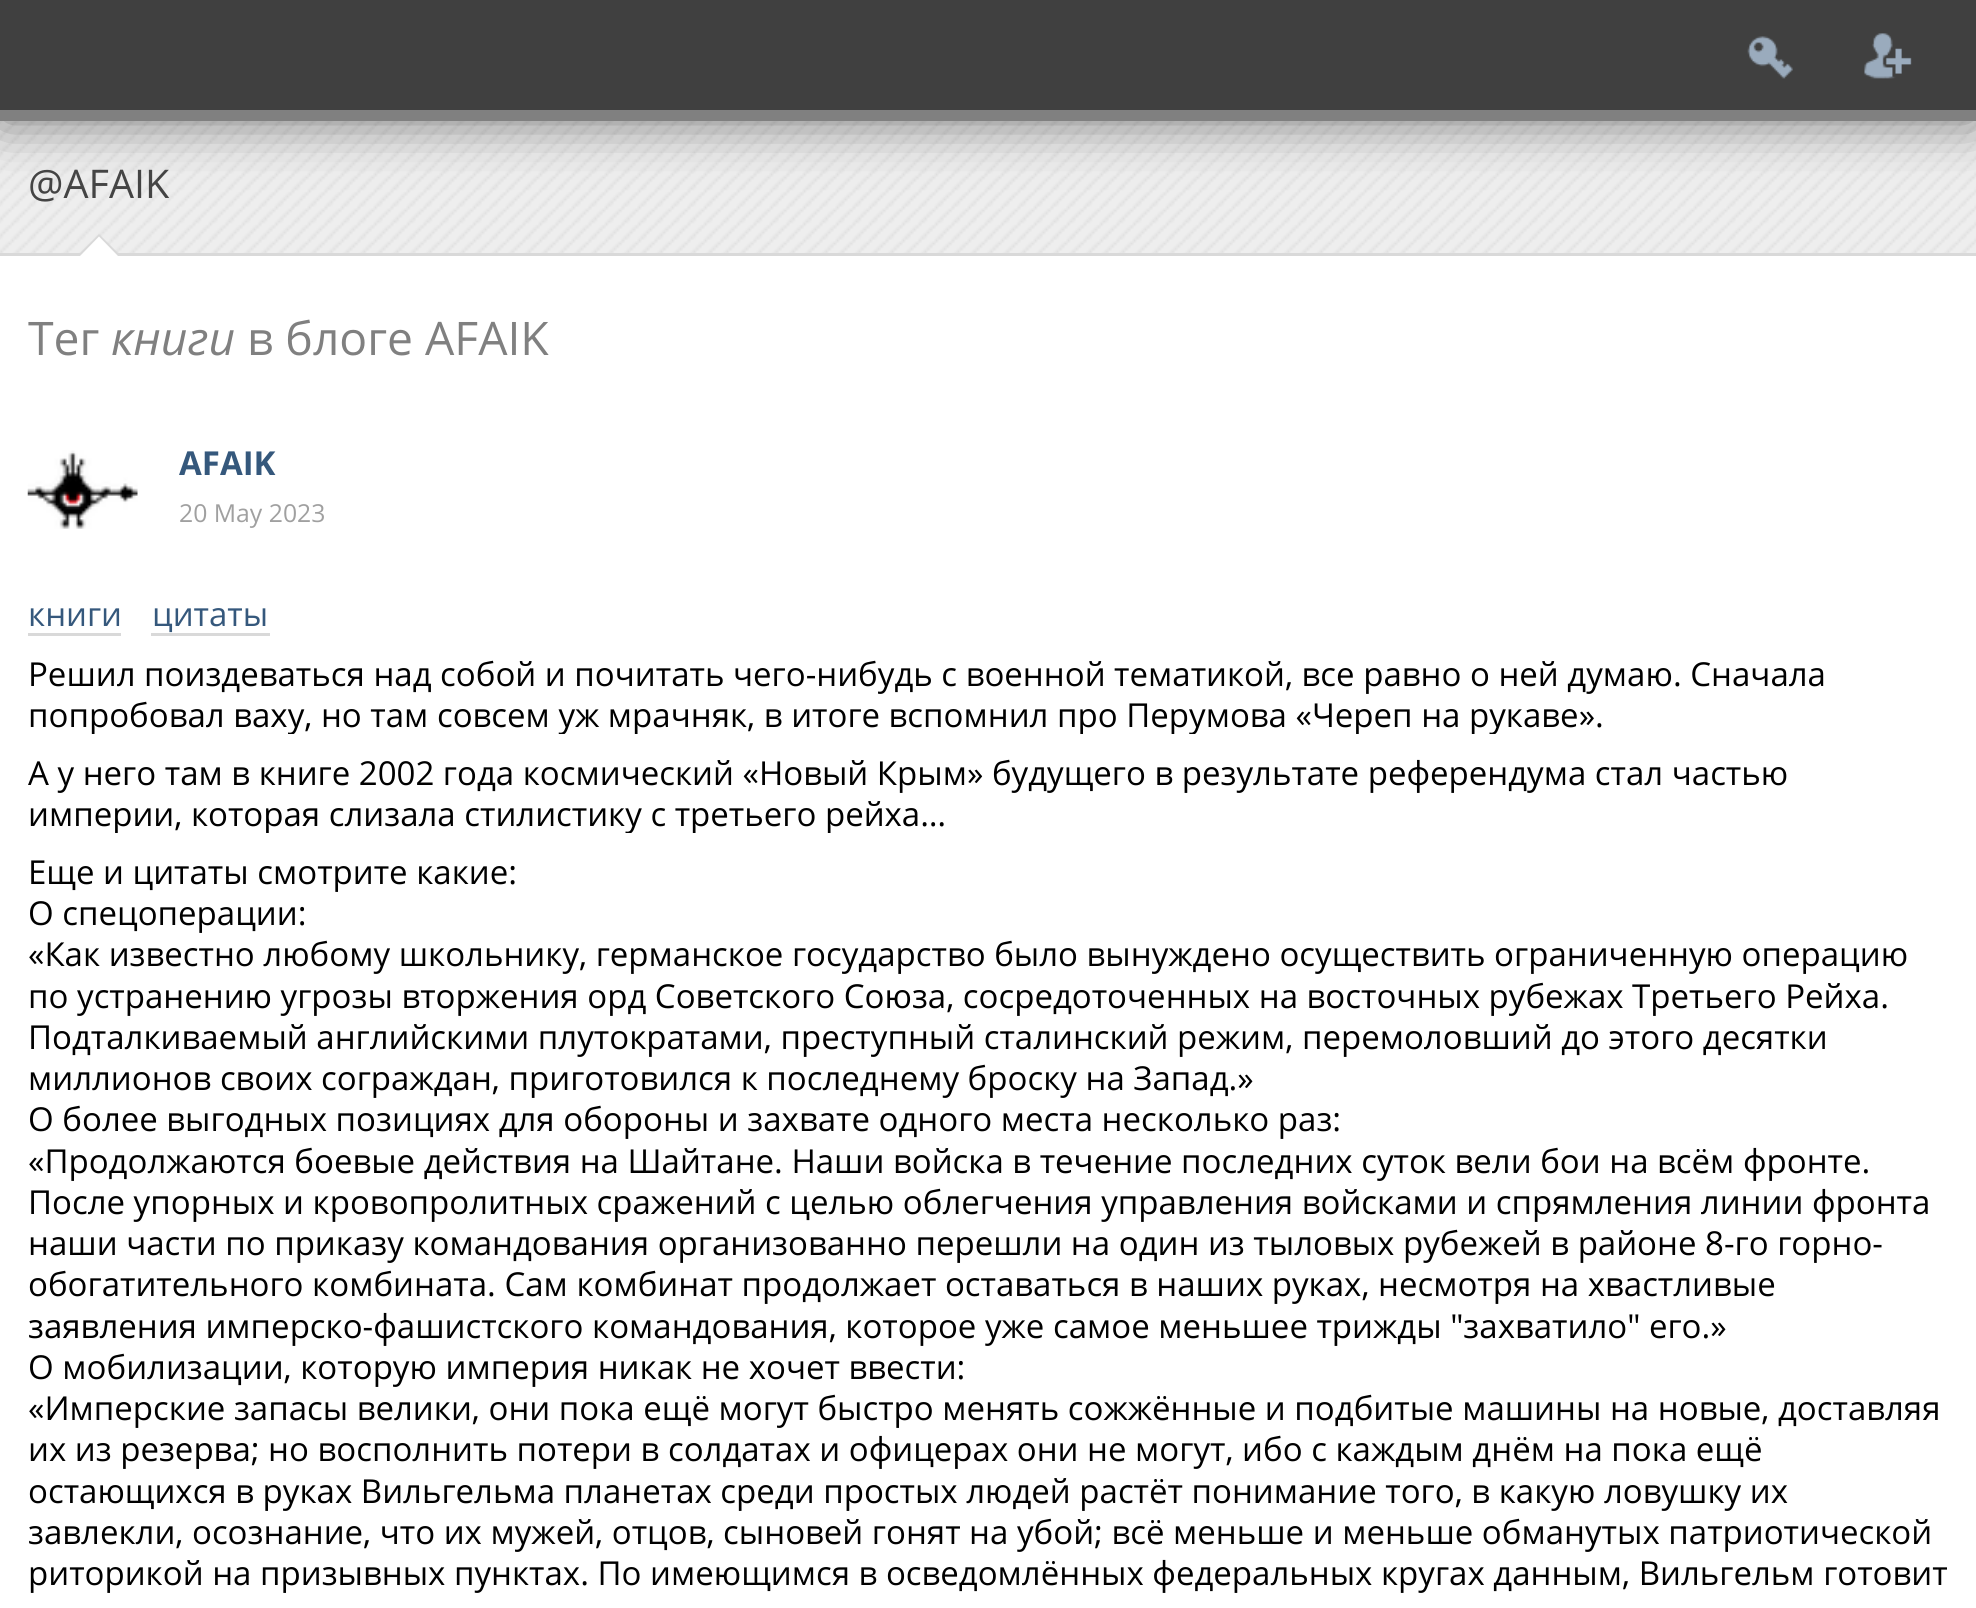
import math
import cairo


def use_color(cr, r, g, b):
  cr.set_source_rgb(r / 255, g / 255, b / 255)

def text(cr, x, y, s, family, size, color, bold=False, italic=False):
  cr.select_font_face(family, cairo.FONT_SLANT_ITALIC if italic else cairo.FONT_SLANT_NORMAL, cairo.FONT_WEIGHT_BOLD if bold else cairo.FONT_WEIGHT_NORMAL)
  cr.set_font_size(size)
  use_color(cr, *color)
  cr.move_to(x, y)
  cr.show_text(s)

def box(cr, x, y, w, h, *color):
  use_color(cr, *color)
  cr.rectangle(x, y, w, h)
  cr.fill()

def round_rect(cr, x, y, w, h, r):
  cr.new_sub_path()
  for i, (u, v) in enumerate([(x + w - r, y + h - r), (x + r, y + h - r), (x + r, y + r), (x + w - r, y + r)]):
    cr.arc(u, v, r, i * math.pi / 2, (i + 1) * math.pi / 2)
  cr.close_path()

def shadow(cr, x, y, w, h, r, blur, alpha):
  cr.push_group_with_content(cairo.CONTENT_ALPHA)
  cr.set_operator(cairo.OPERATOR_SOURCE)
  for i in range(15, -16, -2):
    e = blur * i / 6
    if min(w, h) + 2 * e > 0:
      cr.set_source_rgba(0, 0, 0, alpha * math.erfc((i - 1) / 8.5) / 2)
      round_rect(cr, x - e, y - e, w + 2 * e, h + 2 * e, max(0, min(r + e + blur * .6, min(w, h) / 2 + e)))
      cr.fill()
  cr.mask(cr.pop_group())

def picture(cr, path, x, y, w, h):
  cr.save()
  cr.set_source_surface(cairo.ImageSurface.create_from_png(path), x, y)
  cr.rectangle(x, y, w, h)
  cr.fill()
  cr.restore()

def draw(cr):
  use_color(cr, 238, 238, 238)
  cr.paint()
  picture(cr, "img_03.png", 0, 121, 1976, 132)
  use_color(cr, 0, 0, 0)
  shadow(cr, 0, 0, 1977, 121, 0, 27.5, 0.5)
  box(cr, 0, 0, 1976, 110, 64, 64, 64)
  box(cr, 0, 110, 1976, 11, 128, 128, 128)
  picture(cr, "img_01.png", 1747, 36, 46, 43)
  picture(cr, "img_02.png", 1864, 33, 48, 46)
  box(cr, 0, 253, 1976, 3, 217, 217, 217)
  cr.new_path()
  cr.move_to(121, 256)
  cr.line_to(77, 256)
  cr.line_to(99, 234)
  cr.close_path()
  cr.fill()
  use_color(cr, 255, 255, 255)
  cr.new_path()
  cr.move_to(118, 256)
  cr.line_to(80, 256)
  cr.line_to(99, 236.5)
  cr.close_path()
  cr.fill()
  box(cr, 0, 256, 1976, 1352, 255, 255, 255)
  picture(cr, "img_04.png", 27, 450, 111, 79)
  box(cr, 28, 633, 93, 3, 217, 217, 217)
  box(cr, 151, 633, 119, 3, 217, 217, 217)
  text(cr, 28, 198, "@AFAIK", "Open Sans", 39.5, (68, 68, 68))
  text(cr, 28, 355, "Тег", "Open Sans", 46.25, (128, 128, 128))
  text(cr, 111, 355, "книги", "Open Sans", 46.25, (128, 128, 128), italic=True)
  text(cr, 247, 355, "в блоге AFAIK", "Open Sans", 46.25, (128, 128, 128))
  text(cr, 179, 475, "AFAIK", "Open Sans", 33, (53, 88, 124), bold=True)
  text(cr, 179, 522, "20 May 2023", "Open Sans", 24.75, (160, 160, 160))
  text(cr, 28, 626, "книги", "Open Sans", 33, (53, 88, 124))
  text(cr, 152, 626, "цитаты", "Open Sans", 33, (53, 88, 124))
  text(cr, 28, 686, "Решил поиздеваться над собой и почитать чего-нибудь с военной тематикой, все равно о ней думаю. Сначала", "Open Sans", 33, (0, 0, 0))
  cr.save()
  cr.rectangle(28, 652, 1922, 82)
  cr.clip()
  text(cr, 28, 727, "попробовал ваху, но там совсем уж мрачняк, в итоге вспомнил про Перумова «Череп на рукаве».", "Open Sans", 33, (0, 0, 0))
  cr.restore()
  text(cr, 28, 785, "А у него там в книге 2002 года космический «Новый Крым» будущего в результате референдума стал частью", "Open Sans", 33, (0, 0, 0))
  cr.save()
  cr.rectangle(28, 751, 1922, 82)
  cr.clip()
  text(cr, 28, 826, "империи, которая слизала стилистику с третьего рейха…", "Open Sans", 33, (0, 0, 0))
  cr.restore()
  text(cr, 28, 884, "Еще и цитаты смотрите какие:", "Open Sans", 33, (0, 0, 0))
  text(cr, 28, 925, "О спецоперации:", "Open Sans", 33, (0, 0, 0))
  text(cr, 28, 966, "«Как известно любому школьнику, германское государство было вынуждено осуществить ограниченную операцию", "Open Sans", 33, (0, 0, 0))
  text(cr, 28, 1008, "по устранению угрозы вторжения орд Советского Союза, сосредоточенных на восточных рубежах Третьего Рейха.", "Open Sans", 33, (0, 0, 0))
  text(cr, 28, 1049, "Подталкиваемый английскими плутократами, преступный сталинский режим, перемоловший до этого десятки", "Open Sans", 33, (0, 0, 0))
  text(cr, 28, 1090, "миллионов своих сограждан, приготовился к последнему броску на Запад.»", "Open Sans", 33, (0, 0, 0))
  text(cr, 28, 1131, "О более выгодных позициях для обороны и захвате одного места несколько раз:", "Open Sans", 33, (0, 0, 0))
  text(cr, 28, 1173, "«Продолжаются боевые действия на Шайтане. Наши войска в течение последних суток вели бои на всём фронте.", "Open Sans", 33, (0, 0, 0))
  text(cr, 28, 1214, "После упорных и кровопролитных сражений с целью облегчения управления войсками и спрямления линии фронта", "Open Sans", 33, (0, 0, 0))
  text(cr, 28, 1255, "наши части по приказу командования организованно перешли на один из тыловых рубежей в районе 8-го горно-", "Open Sans", 33, (0, 0, 0))
  text(cr, 28, 1296, "обогатительного комбината. Сам комбинат продолжает оставаться в наших руках, несмотря на хвастливые", "Open Sans", 33, (0, 0, 0))
  text(cr, 28, 1338, "заявления имперско-фашистского командования, которое уже самое меньшее трижды \"захватило\" его.»", "Open Sans", 33, (0, 0, 0))
  text(cr, 28, 1379, "О мобилизации, которую империя никак не хочет ввести:", "Open Sans", 33, (0, 0, 0))
  text(cr, 28, 1420, "«Имперские запасы велики, они пока ещё могут быстро менять сожжённые и подбитые машины на новые, доставляя", "Open Sans", 33, (0, 0, 0))
  text(cr, 28, 1461, "их из резерва; но восполнить потери в солдатах и офицерах они не могут, ибо с каждым днём на пока ещё", "Open Sans", 33, (0, 0, 0))
  text(cr, 28, 1503, "остающихся в руках Вильгельма планетах среди простых людей растёт понимание того, в какую ловушку их", "Open Sans", 33, (0, 0, 0))
  text(cr, 28, 1544, "завлекли, осознание, что их мужей, отцов, сыновей гонят на убой; всё меньше и меньше обманутых патриотической", "Open Sans", 33, (0, 0, 0))
  text(cr, 28, 1585, "риторикой на призывных пунктах. По имеющимся в осведомлённых федеральных кругах данным, Вильгельм готовит", "Open Sans", 33, (0, 0, 0))


surface = cairo.ImageSurface(cairo.FORMAT_RGB24, 1976, 1608)
cr = cairo.Context(surface)
options = cairo.FontOptions()
options.set_hint_metrics(cairo.HINT_METRICS_OFF)
options.set_hint_style(cairo.HINT_STYLE_NONE)
cr.set_font_options(options)
cr.set_miter_limit(4)
draw(cr)
surface.write_to_png("out.png")
